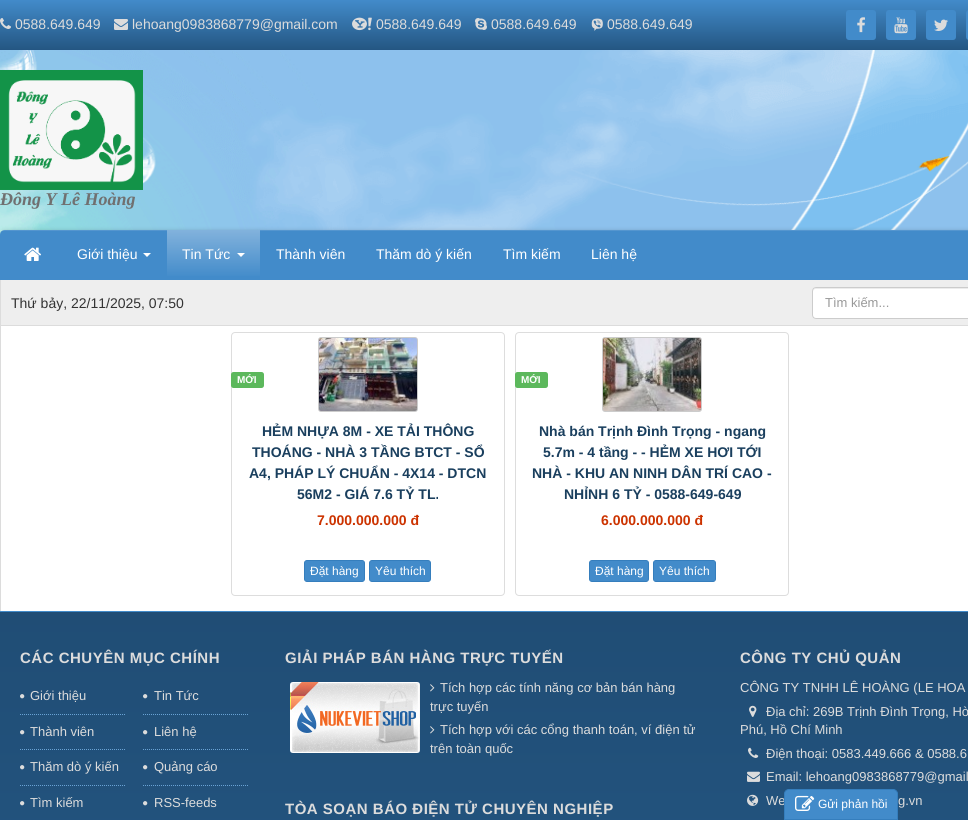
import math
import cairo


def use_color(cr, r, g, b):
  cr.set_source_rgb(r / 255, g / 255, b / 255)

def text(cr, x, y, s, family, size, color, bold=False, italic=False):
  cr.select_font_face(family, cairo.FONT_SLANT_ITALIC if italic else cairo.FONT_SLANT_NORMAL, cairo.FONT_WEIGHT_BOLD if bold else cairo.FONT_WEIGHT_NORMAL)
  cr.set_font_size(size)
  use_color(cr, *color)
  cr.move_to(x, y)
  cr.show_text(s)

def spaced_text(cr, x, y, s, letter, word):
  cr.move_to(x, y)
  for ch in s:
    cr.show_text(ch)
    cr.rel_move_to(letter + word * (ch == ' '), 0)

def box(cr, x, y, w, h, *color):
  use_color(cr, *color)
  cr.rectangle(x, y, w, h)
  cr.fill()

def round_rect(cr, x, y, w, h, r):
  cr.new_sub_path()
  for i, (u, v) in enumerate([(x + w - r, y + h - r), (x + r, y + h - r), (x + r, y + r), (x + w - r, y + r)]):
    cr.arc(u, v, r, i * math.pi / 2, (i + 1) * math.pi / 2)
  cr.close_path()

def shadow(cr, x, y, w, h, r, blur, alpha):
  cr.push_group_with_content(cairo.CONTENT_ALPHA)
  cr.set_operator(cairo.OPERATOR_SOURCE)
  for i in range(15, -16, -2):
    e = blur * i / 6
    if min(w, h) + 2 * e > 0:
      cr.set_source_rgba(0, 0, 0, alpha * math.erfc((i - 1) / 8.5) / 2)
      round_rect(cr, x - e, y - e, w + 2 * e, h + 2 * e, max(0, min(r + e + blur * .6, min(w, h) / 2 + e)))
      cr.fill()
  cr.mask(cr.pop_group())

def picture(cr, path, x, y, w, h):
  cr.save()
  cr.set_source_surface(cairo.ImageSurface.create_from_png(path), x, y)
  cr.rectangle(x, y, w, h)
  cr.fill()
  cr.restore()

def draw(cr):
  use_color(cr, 255, 255, 255)
  cr.paint()
  gradient = cairo.LinearGradient(484, 0, 484, 50)
  gradient.add_color_stop_rgba(0, 0.259, 0.545, 0.792, 1)
  gradient.add_color_stop_rgba(1, 0.141, 0.337, 0.51, 1)
  gradient.add_color_stop_rgba(1, 1, 1, 1, 1)
  cr.set_source(gradient)
  cr.rectangle(0, 0, 968, 50)
  cr.fill()
  picture(cr, "img_01.png", 0, 18, 11, 11)
  picture(cr, "img_02.png", 114, 19, 14, 11)
  picture(cr, "img_03.png", 352, 17, 20, 14)
  picture(cr, "img_04.png", 475, 18, 12, 12)
  picture(cr, "img_05.png", 591, 18, 12, 13)
  use_color(cr, 66, 139, 202)
  round_rect(cr, 846, 10, 30, 30, 3)
  cr.fill()
  picture(cr, "img_06.png", 857, 17, 8, 16)
  round_rect(cr, 886, 10, 30, 30, 3)
  cr.fill()
  picture(cr, "img_07.png", 894, 17, 14, 17)
  round_rect(cr, 926, 10, 30, 30, 3)
  cr.fill()
  picture(cr, "img_08.png", 934, 19, 14, 12)
  round_rect(cr, 966, 10, 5, 30, 3)
  cr.fill()
  picture(cr, "img_09.png", 0, 50, 968, 185)
  picture(cr, "img_10.png", 0, 70, 143, 120)
  use_color(cr, 0, 0, 0)
  shadow(cr, 0, 230, 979, 50, 5, 2, 0.15)
  use_color(cr, 66, 139, 202)
  cr.new_path()
  cr.move_to(5, 230)
  cr.line_to(968, 230)
  cr.curve_to(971, 230, 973, 232, 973, 235)
  cr.line_to(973, 279)
  cr.line_to(0, 279)
  cr.line_to(0, 235)
  cr.curve_to(0, 232, 2, 230, 5, 230)
  cr.close_path()
  cr.fill()
  box(cr, 0, 279, 968, 1, 66, 139, 202)
  cr.set_source_rgba(1, 1, 1, 0.1)
  cr.rectangle(0, 230, 968, 1)
  cr.fill()
  picture(cr, "img_11.png", 24, 247, 17, 14)
  use_color(cr, 255, 255, 255)
  cr.new_path()
  cr.move_to(143, 253)
  cr.line_to(151, 253)
  cr.line_to(147, 257)
  cr.close_path()
  cr.fill()
  gradient = cairo.LinearGradient(214, 230, 214, 278)
  gradient.add_color_stop_rgba(0, 0.51, 0.698, 0.863, 1)
  gradient.add_color_stop_rgba(1, 0.259, 0.545, 0.792, 1)
  cr.set_source(gradient)
  cr.rectangle(167, 230, 93, 46)
  cr.fill()
  use_color(cr, 255, 255, 255)
  cr.new_path()
  cr.move_to(237, 253)
  cr.line_to(245, 253)
  cr.line_to(241, 257)
  cr.close_path()
  cr.fill()
  box(cr, 0, 280, 1, 331, 220, 220, 220)
  box(cr, 1, 325, 967, 1, 220, 220, 220)
  box(cr, 1, 280, 967, 45, 238, 238, 238)
  use_color(cr, 255, 255, 255)
  cr.new_path()
  cr.move_to(816, 287)
  cr.line_to(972, 287)
  cr.line_to(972, 319)
  cr.line_to(816, 319)
  cr.curve_to(814, 319, 812, 317, 812, 315)
  cr.line_to(812, 291)
  cr.curve_to(812, 289, 814, 287, 816, 287)
  cr.close_path()
  cr.fill()
  use_color(cr, 236, 236, 236)
  cr.new_path()
  cr.move_to(816, 289)
  cr.line_to(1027, 289)
  cr.line_to(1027, 288)
  cr.line_to(816, 288)
  cr.curve_to(814, 288, 813, 289, 813, 291)
  cr.line_to(813, 292)
  cr.curve_to(813, 290, 814, 289, 816, 289)
  cr.close_path()
  cr.fill()
  cr.new_path()
  cr.move_to(816, 287.5)
  cr.line_to(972.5, 287.5)
  cr.line_to(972.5, 318.5)
  cr.line_to(816, 318.5)
  cr.curve_to(814, 318.5, 812.5, 317, 812.5, 315)
  cr.line_to(812.5, 291)
  cr.curve_to(812.5, 289, 814, 287.5, 816, 287.5)
  cr.close_path()
  use_color(cr, 204, 204, 204)
  cr.set_line_width(1)
  cr.stroke()
  round_rect(cr, 231.5, 332.5, 273, 263, 3.5)
  use_color(cr, 221, 221, 221)
  cr.stroke()
  use_color(cr, 92, 184, 92)
  round_rect(cr, 231, 372, 33, 16, 2.5)
  cr.fill()
  use_color(cr, 204, 204, 204)
  round_rect(cr, 318, 337, 100, 75, 3)
  cr.fill()
  picture(cr, "img_12.png", 319, 338, 98, 73)
  use_color(cr, 66, 139, 202)
  round_rect(cr, 304.5, 560.5, 60, 21, 2.5)
  cr.fill_preserve()
  use_color(cr, 53, 126, 189)
  cr.stroke()
  use_color(cr, 66, 139, 202)
  round_rect(cr, 369.5, 560.5, 61, 21, 2.5)
  cr.fill_preserve()
  use_color(cr, 53, 126, 189)
  cr.stroke()
  round_rect(cr, 515.5, 332.5, 273, 263, 3.5)
  use_color(cr, 221, 221, 221)
  cr.stroke()
  use_color(cr, 92, 184, 92)
  round_rect(cr, 515, 372, 33, 16, 2.5)
  cr.fill()
  use_color(cr, 204, 204, 204)
  round_rect(cr, 602, 337, 100, 75, 3)
  cr.fill()
  picture(cr, "img_13.png", 603, 338, 98, 73)
  use_color(cr, 66, 139, 202)
  round_rect(cr, 589.5, 560.5, 59, 21, 2.5)
  cr.fill_preserve()
  use_color(cr, 53, 126, 189)
  cr.stroke()
  use_color(cr, 66, 139, 202)
  round_rect(cr, 653.5, 560.5, 62, 21, 2.5)
  cr.fill_preserve()
  use_color(cr, 53, 126, 189)
  cr.stroke()
  gradient = cairo.LinearGradient(484, 612, 484, 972)
  gradient.add_color_stop_rgba(0, 0.125, 0.302, 0.459, 1)
  gradient.add_color_stop_rgba(1, 0.141, 0.337, 0.51, 1)
  cr.set_source(gradient)
  cr.rectangle(0, 612, 968, 208)
  cr.fill()
  box(cr, 0, 611, 968, 1, 66, 139, 202)
  cr.new_path()
  cr.move_to(20, 714.5)
  cr.line_to(125, 714.5)
  use_color(cr, 106, 163, 213)
  cr.set_dash([1, 1])
  cr.stroke()
  picture(cr, "img_14.png", 20, 694, 5, 5)
  cr.new_path()
  cr.move_to(143, 714.5)
  cr.line_to(249, 714.5)
  cr.stroke()
  picture(cr, "img_14.png", 143, 694, 5, 5)
  cr.new_path()
  cr.move_to(20, 749.5)
  cr.line_to(125, 749.5)
  cr.stroke()
  picture(cr, "img_15.png", 20, 730, 5, 5)
  cr.new_path()
  cr.move_to(143, 749.5)
  cr.line_to(249, 749.5)
  cr.stroke()
  picture(cr, "img_15.png", 143, 730, 5, 5)
  cr.new_path()
  cr.move_to(20, 785.5)
  cr.line_to(125, 785.5)
  cr.stroke()
  picture(cr, "img_16.png", 20, 765, 5, 5)
  cr.new_path()
  cr.move_to(143, 785.5)
  cr.line_to(249, 785.5)
  cr.stroke()
  picture(cr, "img_16.png", 143, 765, 5, 5)
  picture(cr, "img_17.png", 20, 801, 5, 5)
  picture(cr, "img_17.png", 143, 801, 5, 5)
  picture(cr, "img_18.png", 290, 682, 130, 71)
  picture(cr, "img_19.png", 430, 684, 5, 8)
  picture(cr, "img_20.png", 430, 726, 5, 8)
  picture(cr, "img_21.png", 749, 705, 8, 12)
  picture(cr, "img_22.png", 748, 747, 11, 11)
  picture(cr, "img_23.png", 747, 771, 13, 11)
  picture(cr, "img_24.png", 747, 794, 12, 12)
  text(cr, 15, 29, "0588.649.649", "Liberation Sans", 14, (220, 220, 220))
  text(cr, 132, 29, "lehoang0983868779@gmail.com", "Liberation Sans", 14, (220, 220, 220))
  text(cr, 376, 29, "0588.649.649", "Liberation Sans", 14, (220, 220, 220))
  text(cr, 491, 29, "0588.649.649", "Liberation Sans", 14, (220, 220, 220))
  text(cr, 607, 29, "0588.649.649", "Liberation Sans", 14, (220, 220, 220))
  text(cr, 0, 205, "Đông Y Lê Hoàng", "Liberation Serif", 18, (112, 112, 112), bold=True, italic=True)
  text(cr, 77, 259, "Giới thiệu", "Liberation Sans", 14, (255, 255, 255))
  text(cr, 182, 259, "Tin Tức", "Liberation Sans", 14, (255, 255, 255))
  text(cr, 276, 259, "Thành viên", "Liberation Sans", 14, (255, 255, 255))
  text(cr, 376, 259, "Thăm dò ý kiến", "Liberation Sans", 14, (255, 255, 255))
  text(cr, 503, 259, "Tìm kiếm", "Liberation Sans", 14, (255, 255, 255))
  text(cr, 591, 259, "Liên hệ", "Liberation Sans", 14, (255, 255, 255))
  text(cr, 11, 308, "Thứ bảy, 22/11/2025, 07:50", "Liberation Sans", 14, (51, 51, 51))
  text(cr, 825, 307, "Tìm kiếm...", "Liberation Sans", 13, (153, 153, 153))
  text(cr, 237, 383, "MỚI", "Liberation Sans", 10, (255, 255, 255), bold=True)
  text(cr, 262, 436, "HẺM NHỰA 8M - XE TẢI THÔNG", "Liberation Sans", 14, (26, 63, 94), bold=True)
  text(cr, 252, 457, "THOÁNG - NHÀ 3 TẦNG BTCT - SỔ", "Liberation Sans", 14, (26, 63, 94), bold=True)
  text(cr, 249, 478, "A4, PHÁP LÝ CHUẨN - 4X14 - DTCN", "Liberation Sans", 14, (26, 63, 94), bold=True)
  text(cr, 297, 499, "56M2 - GIÁ 7.6 TỶ TL.", "Liberation Sans", 14, (26, 63, 94), bold=True)
  text(cr, 317, 525, "7.000.000.000 đ", "Liberation Sans", 14, (204, 51, 0), bold=True)
  text(cr, 310, 575, "Đặt hàng", "Liberation Sans", 12, (255, 255, 255))
  text(cr, 375, 575, "Yêu thích", "Liberation Sans", 12, (255, 255, 255))
  text(cr, 521, 383, "MỚI", "Liberation Sans", 10, (255, 255, 255), bold=True)
  text(cr, 539, 436, "Nhà bán Trịnh Đình Trọng - ngang", "Liberation Sans", 14, (26, 63, 94), bold=True)
  text(cr, 543, 457, "5.7m - 4 tầng - - HẺM XE HƠI TỚI", "Liberation Sans", 14, (26, 63, 94), bold=True)
  text(cr, 532, 478, "NHÀ - KHU AN NINH DÂN TRÍ CAO -", "Liberation Sans", 14, (26, 63, 94), bold=True)
  text(cr, 564, 499, "NHỈNH 6 TỶ - 0588-649-649", "Liberation Sans", 14, (26, 63, 94), bold=True)
  text(cr, 601, 525, "6.000.000.000 đ", "Liberation Sans", 14, (204, 51, 0), bold=True)
  text(cr, 595, 575, "Đặt hàng", "Liberation Sans", 12, (255, 255, 255))
  text(cr, 659, 575, "Yêu thích", "Liberation Sans", 12, (255, 255, 255))
  cr.select_font_face("Liberation Sans", cairo.FONT_SLANT_NORMAL, cairo.FONT_WEIGHT_BOLD)
  cr.set_font_size(15)
  use_color(cr, 220, 220, 220)
  spaced_text(cr, 20, 663, "CÁC CHUYÊN MỤC CHÍNH", 0.5, 0)
  text(cr, 30, 700, "Giới thiệu", "Liberation Sans", 13, (220, 220, 220))
  text(cr, 154, 700, "Tin Tức", "Liberation Sans", 13, (220, 220, 220))
  text(cr, 30, 736, "Thành viên", "Liberation Sans", 13, (220, 220, 220))
  text(cr, 154, 736, "Liên hệ", "Liberation Sans", 13, (220, 220, 220))
  text(cr, 30, 771, "Thăm dò ý kiến", "Liberation Sans", 13, (220, 220, 220))
  text(cr, 154, 771, "Quảng cáo", "Liberation Sans", 13, (220, 220, 220))
  text(cr, 30, 807, "Tìm kiếm", "Liberation Sans", 13, (220, 220, 220))
  text(cr, 154, 807, "RSS-feeds", "Liberation Sans", 13, (220, 220, 220))
  cr.select_font_face("Liberation Sans", cairo.FONT_SLANT_NORMAL, cairo.FONT_WEIGHT_BOLD)
  cr.set_font_size(15)
  spaced_text(cr, 285, 663, "GIẢI PHÁP BÁN HÀNG TRỰC TUYẾN", 0.5, 0)
  text(cr, 440, 692, "Tích hợp các tính năng cơ bản bán hàng", "Liberation Sans", 13, (220, 220, 220))
  text(cr, 430, 711, "trực tuyến", "Liberation Sans", 13, (220, 220, 220))
  text(cr, 440, 734, "Tích hợp với các cổng thanh toán, ví điện tử", "Liberation Sans", 13, (220, 220, 220))
  text(cr, 430, 753, "trên toàn quốc", "Liberation Sans", 13, (220, 220, 220))
  cr.select_font_face("Liberation Sans", cairo.FONT_SLANT_NORMAL, cairo.FONT_WEIGHT_BOLD)
  cr.set_font_size(15)
  spaced_text(cr, 285, 814, "TÒA SOẠN BÁO ĐIỆN TỬ CHUYÊN NGHIỆP", 0.5, 0)
  spaced_text(cr, 740, 663, "CÔNG TY CHỦ QUẢN", 0.5, 0)
  text(cr, 740, 692, "CÔNG TY TNHH LÊ HOÀNG (LE HOA", "Liberation Sans", 13, (220, 220, 220))
  text(cr, 766, 716, "Địa chỉ: 269B Trịnh Đình Trọng, Hò", "Liberation Sans", 13, (220, 220, 220))
  text(cr, 740, 734, "Phú, Hồ Chí Minh", "Liberation Sans", 13, (220, 220, 220))
  text(cr, 766, 758, "Điện thoại: 0583.449.666 & 0588.6", "Liberation Sans", 13, (220, 220, 220))
  text(cr, 766, 781, "Email: lehoang0983868779@gmail", "Liberation Sans", 13, (220, 220, 220))
  text(cr, 766, 805, "We", "Liberation Sans", 13, (220, 220, 220))
  text(cr, 898, 805, "g.vn", "Liberation Sans", 13, (220, 220, 220))
  use_color(cr, 66, 139, 202)
  cr.new_path()
  cr.move_to(789, 789.5)
  cr.line_to(893, 789.5)
  cr.curve_to(895.5, 789.5, 897.5, 791.5, 897.5, 794)
  cr.line_to(897.5, 819.5)
  cr.line_to(784.5, 819.5)
  cr.line_to(784.5, 794)
  cr.curve_to(784.5, 791.5, 786.5, 789.5, 789, 789.5)
  cr.close_path()
  cr.fill_preserve()
  use_color(cr, 53, 126, 189)
  cr.set_dash([])
  cr.stroke()
  picture(cr, "img_25.png", 795, 795, 20, 16)
  text(cr, 818, 808, "Gửi phản hồi", "Liberation Sans", 12, (255, 255, 255))


surface = cairo.ImageSurface(cairo.FORMAT_RGB24, 968, 820)
cr = cairo.Context(surface)
options = cairo.FontOptions()
options.set_hint_metrics(cairo.HINT_METRICS_OFF)
options.set_hint_style(cairo.HINT_STYLE_NONE)
cr.set_font_options(options)
cr.set_miter_limit(4)
draw(cr)
surface.write_to_png("out.png")
